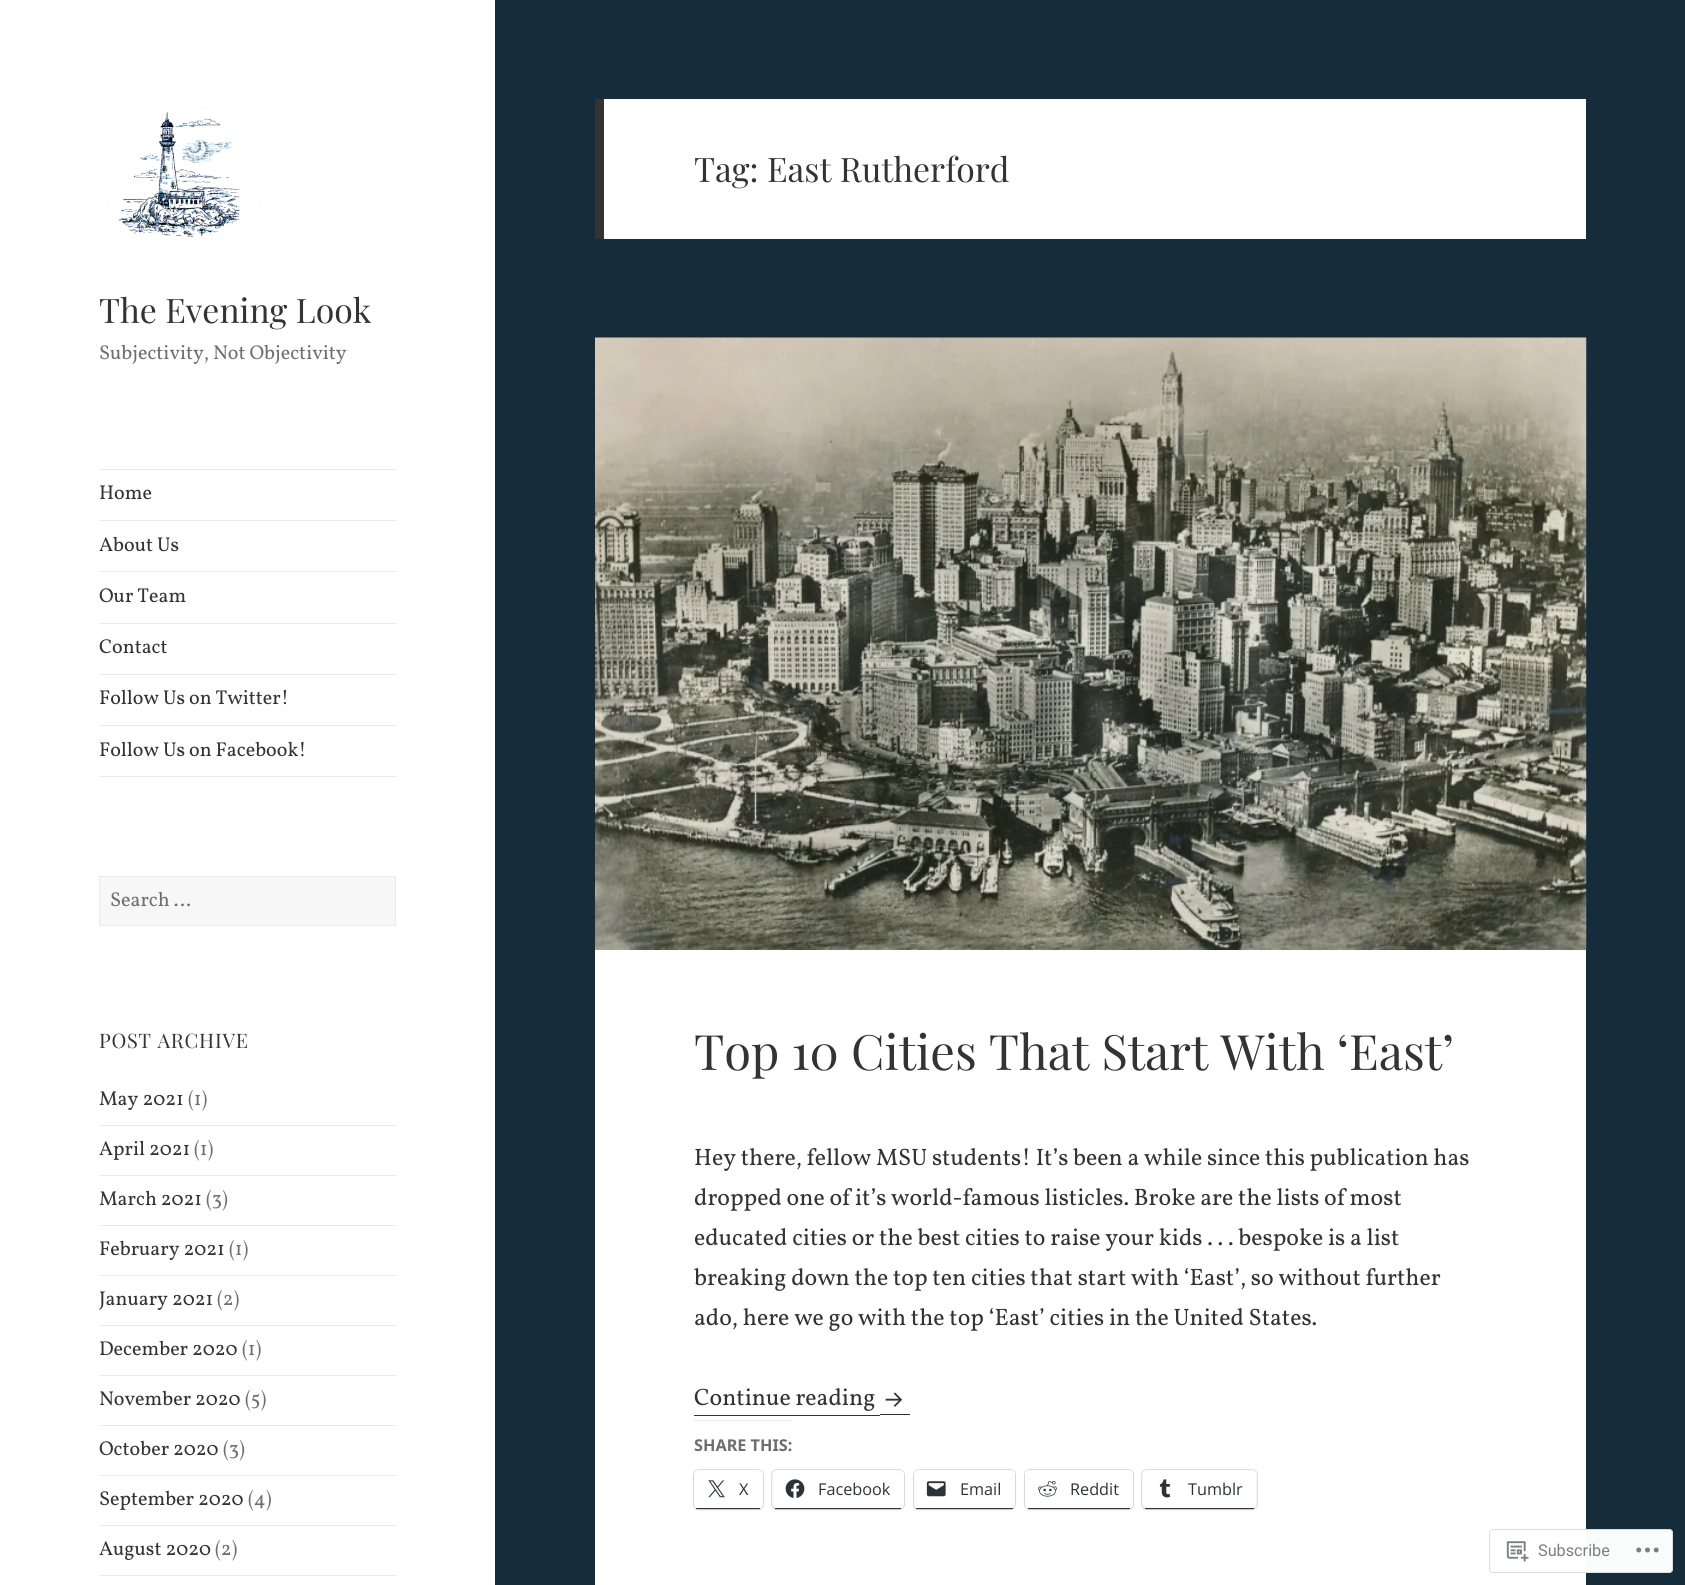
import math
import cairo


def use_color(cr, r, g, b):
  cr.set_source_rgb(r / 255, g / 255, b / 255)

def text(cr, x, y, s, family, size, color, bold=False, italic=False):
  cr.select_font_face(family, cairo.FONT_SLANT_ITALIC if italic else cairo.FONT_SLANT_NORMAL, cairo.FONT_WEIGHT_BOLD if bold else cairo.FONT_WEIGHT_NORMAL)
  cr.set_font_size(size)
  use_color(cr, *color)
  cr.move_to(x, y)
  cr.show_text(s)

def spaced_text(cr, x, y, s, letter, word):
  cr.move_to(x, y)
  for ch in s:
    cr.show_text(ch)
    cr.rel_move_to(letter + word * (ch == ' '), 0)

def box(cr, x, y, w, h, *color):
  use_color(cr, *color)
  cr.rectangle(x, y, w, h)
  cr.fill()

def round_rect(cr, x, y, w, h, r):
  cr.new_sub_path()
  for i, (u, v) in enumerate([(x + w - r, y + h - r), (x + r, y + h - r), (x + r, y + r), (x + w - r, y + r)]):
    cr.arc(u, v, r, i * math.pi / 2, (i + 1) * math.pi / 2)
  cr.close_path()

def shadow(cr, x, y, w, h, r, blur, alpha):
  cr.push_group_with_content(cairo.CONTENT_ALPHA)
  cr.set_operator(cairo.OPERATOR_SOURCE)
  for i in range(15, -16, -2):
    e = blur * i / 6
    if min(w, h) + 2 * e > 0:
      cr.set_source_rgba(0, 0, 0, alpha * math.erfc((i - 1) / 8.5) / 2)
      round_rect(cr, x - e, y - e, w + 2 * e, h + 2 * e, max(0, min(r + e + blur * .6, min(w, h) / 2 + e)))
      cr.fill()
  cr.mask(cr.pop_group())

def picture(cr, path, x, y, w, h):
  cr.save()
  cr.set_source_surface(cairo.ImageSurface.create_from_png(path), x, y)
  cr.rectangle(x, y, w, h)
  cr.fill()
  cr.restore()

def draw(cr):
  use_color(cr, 23, 44, 58)
  cr.paint()
  box(cr, 0, 0, 495, 1585, 255, 255, 255)
  picture(cr, "img_01.png", 103, 106, 160, 154)
  box(cr, 99, 469, 297, 1, 234, 234, 234)
  box(cr, 99, 776, 297, 1, 234, 234, 234)
  box(cr, 99, 520, 297, 1, 234, 234, 234)
  box(cr, 99, 571, 297, 1, 234, 234, 234)
  box(cr, 99, 623, 297, 1, 234, 234, 234)
  box(cr, 99, 674, 297, 1, 234, 234, 234)
  box(cr, 99, 725, 297, 1, 234, 234, 234)
  use_color(cr, 247, 247, 247)
  cr.rectangle(99.5, 876.5, 296, 49)
  cr.fill_preserve()
  use_color(cr, 234, 234, 234)
  cr.set_line_width(1)
  cr.stroke()
  box(cr, 99, 1125, 297, 1, 234, 234, 234)
  box(cr, 99, 1175, 297, 1, 234, 234, 234)
  box(cr, 99, 1225, 297, 1, 234, 234, 234)
  box(cr, 99, 1275, 297, 1, 234, 234, 234)
  box(cr, 99, 1325, 297, 1, 234, 234, 234)
  box(cr, 99, 1375, 297, 1, 234, 234, 234)
  box(cr, 99, 1425, 297, 1, 234, 234, 234)
  box(cr, 99, 1475, 297, 1, 234, 234, 234)
  box(cr, 99, 1525, 297, 1, 234, 234, 234)
  box(cr, 99, 1575, 297, 1, 234, 234, 234)
  box(cr, 604, 99, 982, 140, 255, 255, 255)
  box(cr, 595, 99, 9, 140, 51, 51, 51)
  box(cr, 595, 950, 991, 635, 255, 255, 255)
  picture(cr, "img_02.png", 595, 337, 992, 613)
  box(cr, 694, 1415, 186, 1, 51, 51, 51)
  box(cr, 880, 1414, 30, 1, 51, 51, 51)
  picture(cr, "img_03.png", 885, 1392, 18, 15)
  box(cr, 694, 1420, 99, 1, 231, 231, 232)
  round_rect(cr, 693.5, 1469.5, 70, 40, 5.5)
  use_color(cr, 224, 224, 224)
  cr.stroke()
  use_color(cr, 0, 0, 0)
  shadow(cr, 694, 1471, 69, 39, 5, 1, 0.12)
  use_color(cr, 255, 255, 255)
  round_rect(cr, 694, 1470, 69, 39, 5)
  cr.fill()
  box(cr, 696, 1508, 64, 1, 51, 51, 51)
  picture(cr, "img_04.png", 708, 1480, 17, 18)
  round_rect(cr, 771.5, 1469.5, 133, 40, 5.5)
  use_color(cr, 224, 224, 224)
  cr.stroke()
  use_color(cr, 0, 0, 0)
  shadow(cr, 773, 1471, 131, 39, 5, 1, 0.12)
  use_color(cr, 255, 255, 255)
  round_rect(cr, 773, 1470, 131, 39, 5)
  cr.fill()
  box(cr, 775, 1508, 126, 1, 51, 51, 51)
  picture(cr, "img_05.png", 785, 1479, 20, 19)
  round_rect(cr, 913.5, 1469.5, 102, 40, 5.5)
  use_color(cr, 224, 224, 224)
  cr.stroke()
  use_color(cr, 0, 0, 0)
  shadow(cr, 914, 1471, 101, 39, 5, 1, 0.12)
  use_color(cr, 255, 255, 255)
  round_rect(cr, 914, 1470, 101, 39, 5)
  cr.fill()
  box(cr, 916, 1508, 97, 1, 51, 51, 51)
  picture(cr, "img_06.png", 926, 1481, 20, 16)
  round_rect(cr, 1024.5, 1469.5, 109, 40, 5.5)
  use_color(cr, 224, 224, 224)
  cr.stroke()
  use_color(cr, 0, 0, 0)
  shadow(cr, 1025, 1471, 108, 39, 5, 1, 0.12)
  use_color(cr, 255, 255, 255)
  round_rect(cr, 1025, 1470, 108, 39, 5)
  cr.fill()
  box(cr, 1028, 1508, 102, 1, 51, 51, 51)
  picture(cr, "img_07.png", 1038, 1480, 19, 17)
  round_rect(cr, 1141.5, 1469.5, 116, 40, 5.5)
  use_color(cr, 224, 224, 224)
  cr.stroke()
  use_color(cr, 0, 0, 0)
  shadow(cr, 1143, 1471, 113, 39, 5, 1, 0.12)
  use_color(cr, 255, 255, 255)
  round_rect(cr, 1143, 1470, 113, 39, 5)
  cr.fill()
  box(cr, 1145, 1508, 109, 1, 51, 51, 51)
  picture(cr, "img_08.png", 1159, 1479, 12, 19)
  cr.set_source_rgba(1, 1, 1, 0.98)
  round_rect(cr, 1489, 1529, 184, 44, 4)
  cr.fill()
  round_rect(cr, 1489.5, 1529.5, 183, 43, 3.5)
  cr.set_source_rgba(0.863, 0.863, 0.871, 0.98)
  cr.stroke()
  picture(cr, "img_09.png", 1506, 1541, 23, 21)
  picture(cr, "img_10.png", 1636, 1547, 23, 6)
  text(cr, 99, 323, "The Evening Look", "Playfair Display", 33.75, (51, 51, 51))
  text(cr, 99, 359, "Subjectivity, Not Objectivity", "Vollkorn", 20, (110, 110, 110))
  text(cr, 99, 499, "Home", "Vollkorn", 20, (51, 51, 51))
  text(cr, 99, 551, "About Us", "Vollkorn", 20, (51, 51, 51))
  text(cr, 99, 602, "Our Team", "Vollkorn", 20, (51, 51, 51))
  text(cr, 99, 653, "Contact", "Vollkorn", 20, (51, 51, 51))
  text(cr, 99, 704, "Follow Us on Twitter!", "Vollkorn", 20, (51, 51, 51))
  text(cr, 99, 756, "Follow Us on Facebook!", "Vollkorn", 20, (51, 51, 51))
  text(cr, 110, 906, "Search …", "Vollkorn", 20, (110, 110, 110))
  cr.select_font_face("Playfair Display")
  use_color(cr, 51, 51, 51)
  spaced_text(cr, 99, 1048, "POST ARCHIVE", 0.75, 0)
  text(cr, 99, 1105, "May 2021", "Vollkorn", 20, (51, 51, 51))
  text(cr, 188, 1105, "(1)", "Vollkorn", 20, (110, 110, 110))
  text(cr, 99, 1155, "April 2021", "Vollkorn", 20, (51, 51, 51))
  text(cr, 194, 1155, "(1)", "Vollkorn", 20, (110, 110, 110))
  text(cr, 99, 1205, "March 2021", "Vollkorn", 20, (51, 51, 51))
  text(cr, 206, 1205, "(3)", "Vollkorn", 20, (110, 110, 110))
  text(cr, 99, 1255, "February 2021", "Vollkorn", 20, (51, 51, 51))
  text(cr, 229, 1255, "(1)", "Vollkorn", 20, (110, 110, 110))
  text(cr, 99, 1305, "January 2021", "Vollkorn", 20, (51, 51, 51))
  text(cr, 217, 1305, "(2)", "Vollkorn", 20, (110, 110, 110))
  text(cr, 99, 1355, "December 2020", "Vollkorn", 20, (51, 51, 51))
  text(cr, 242, 1355, "(1)", "Vollkorn", 20, (110, 110, 110))
  text(cr, 99, 1405, "November 2020", "Vollkorn", 20, (51, 51, 51))
  text(cr, 245, 1405, "(5)", "Vollkorn", 20, (110, 110, 110))
  text(cr, 99, 1455, "October 2020", "Vollkorn", 20, (51, 51, 51))
  text(cr, 223, 1455, "(3)", "Vollkorn", 20, (110, 110, 110))
  text(cr, 99, 1505, "September 2020", "Vollkorn", 20, (51, 51, 51))
  text(cr, 248, 1505, "(4)", "Vollkorn", 20, (110, 110, 110))
  text(cr, 99, 1555, "August 2020", "Vollkorn", 20, (51, 51, 51))
  text(cr, 215, 1555, "(2)", "Vollkorn", 20, (110, 110, 110))
  text(cr, 694, 182, "Tag: East Rutherford", "Playfair Display", 33.75, (51, 51, 51))
  text(cr, 694, 1070, "Top 10 Cities That Start With ‘East’", "Playfair Display", 48.75, (51, 51, 51))
  text(cr, 694, 1165, "Hey there, fellow MSU students! It’s been a while since this publication has", "Vollkorn", 23.75, (51, 51, 51))
  text(cr, 694, 1205, "dropped one of it’s world-famous listicles. Broke are the lists of most", "Vollkorn", 23.75, (51, 51, 51))
  text(cr, 694, 1245, "educated cities or the best cities to raise your kids . . . bespoke is a list", "Vollkorn", 23.75, (51, 51, 51))
  text(cr, 694, 1285, "breaking down the top ten cities that start with ‘East’, so without further", "Vollkorn", 23.75, (51, 51, 51))
  text(cr, 694, 1325, "ado, here we go with the top ‘East’ cities in the United States.", "Vollkorn", 23.75, (51, 51, 51))
  text(cr, 694, 1405, "Continue reading", "Vollkorn", 23.75, (51, 51, 51))
  text(cr, 694, 1451, "SHARE THIS:", "Noto Sans", 16.25, (110, 110, 110), bold=True)
  text(cr, 739, 1495, "X", "Open Sans", 16.25, (44, 51, 56))
  text(cr, 818, 1495, "Facebook", "Open Sans", 16.25, (44, 51, 56))
  text(cr, 960, 1495, "Email", "Open Sans", 16.25, (44, 51, 56))
  text(cr, 1070, 1495, "Reddit", "Open Sans", 16.25, (44, 51, 56))
  text(cr, 1188, 1495, "Tumblr", "Open Sans", 16.25, (44, 51, 56))
  text(cr, 1538, 1556, "Subscribe", "Roboto", 16.25, (123, 127, 132))


surface = cairo.ImageSurface(cairo.FORMAT_RGB24, 1685, 1585)
cr = cairo.Context(surface)
options = cairo.FontOptions()
options.set_hint_metrics(cairo.HINT_METRICS_OFF)
options.set_hint_style(cairo.HINT_STYLE_NONE)
cr.set_font_options(options)
cr.set_miter_limit(4)
draw(cr)
surface.write_to_png("out.png")
